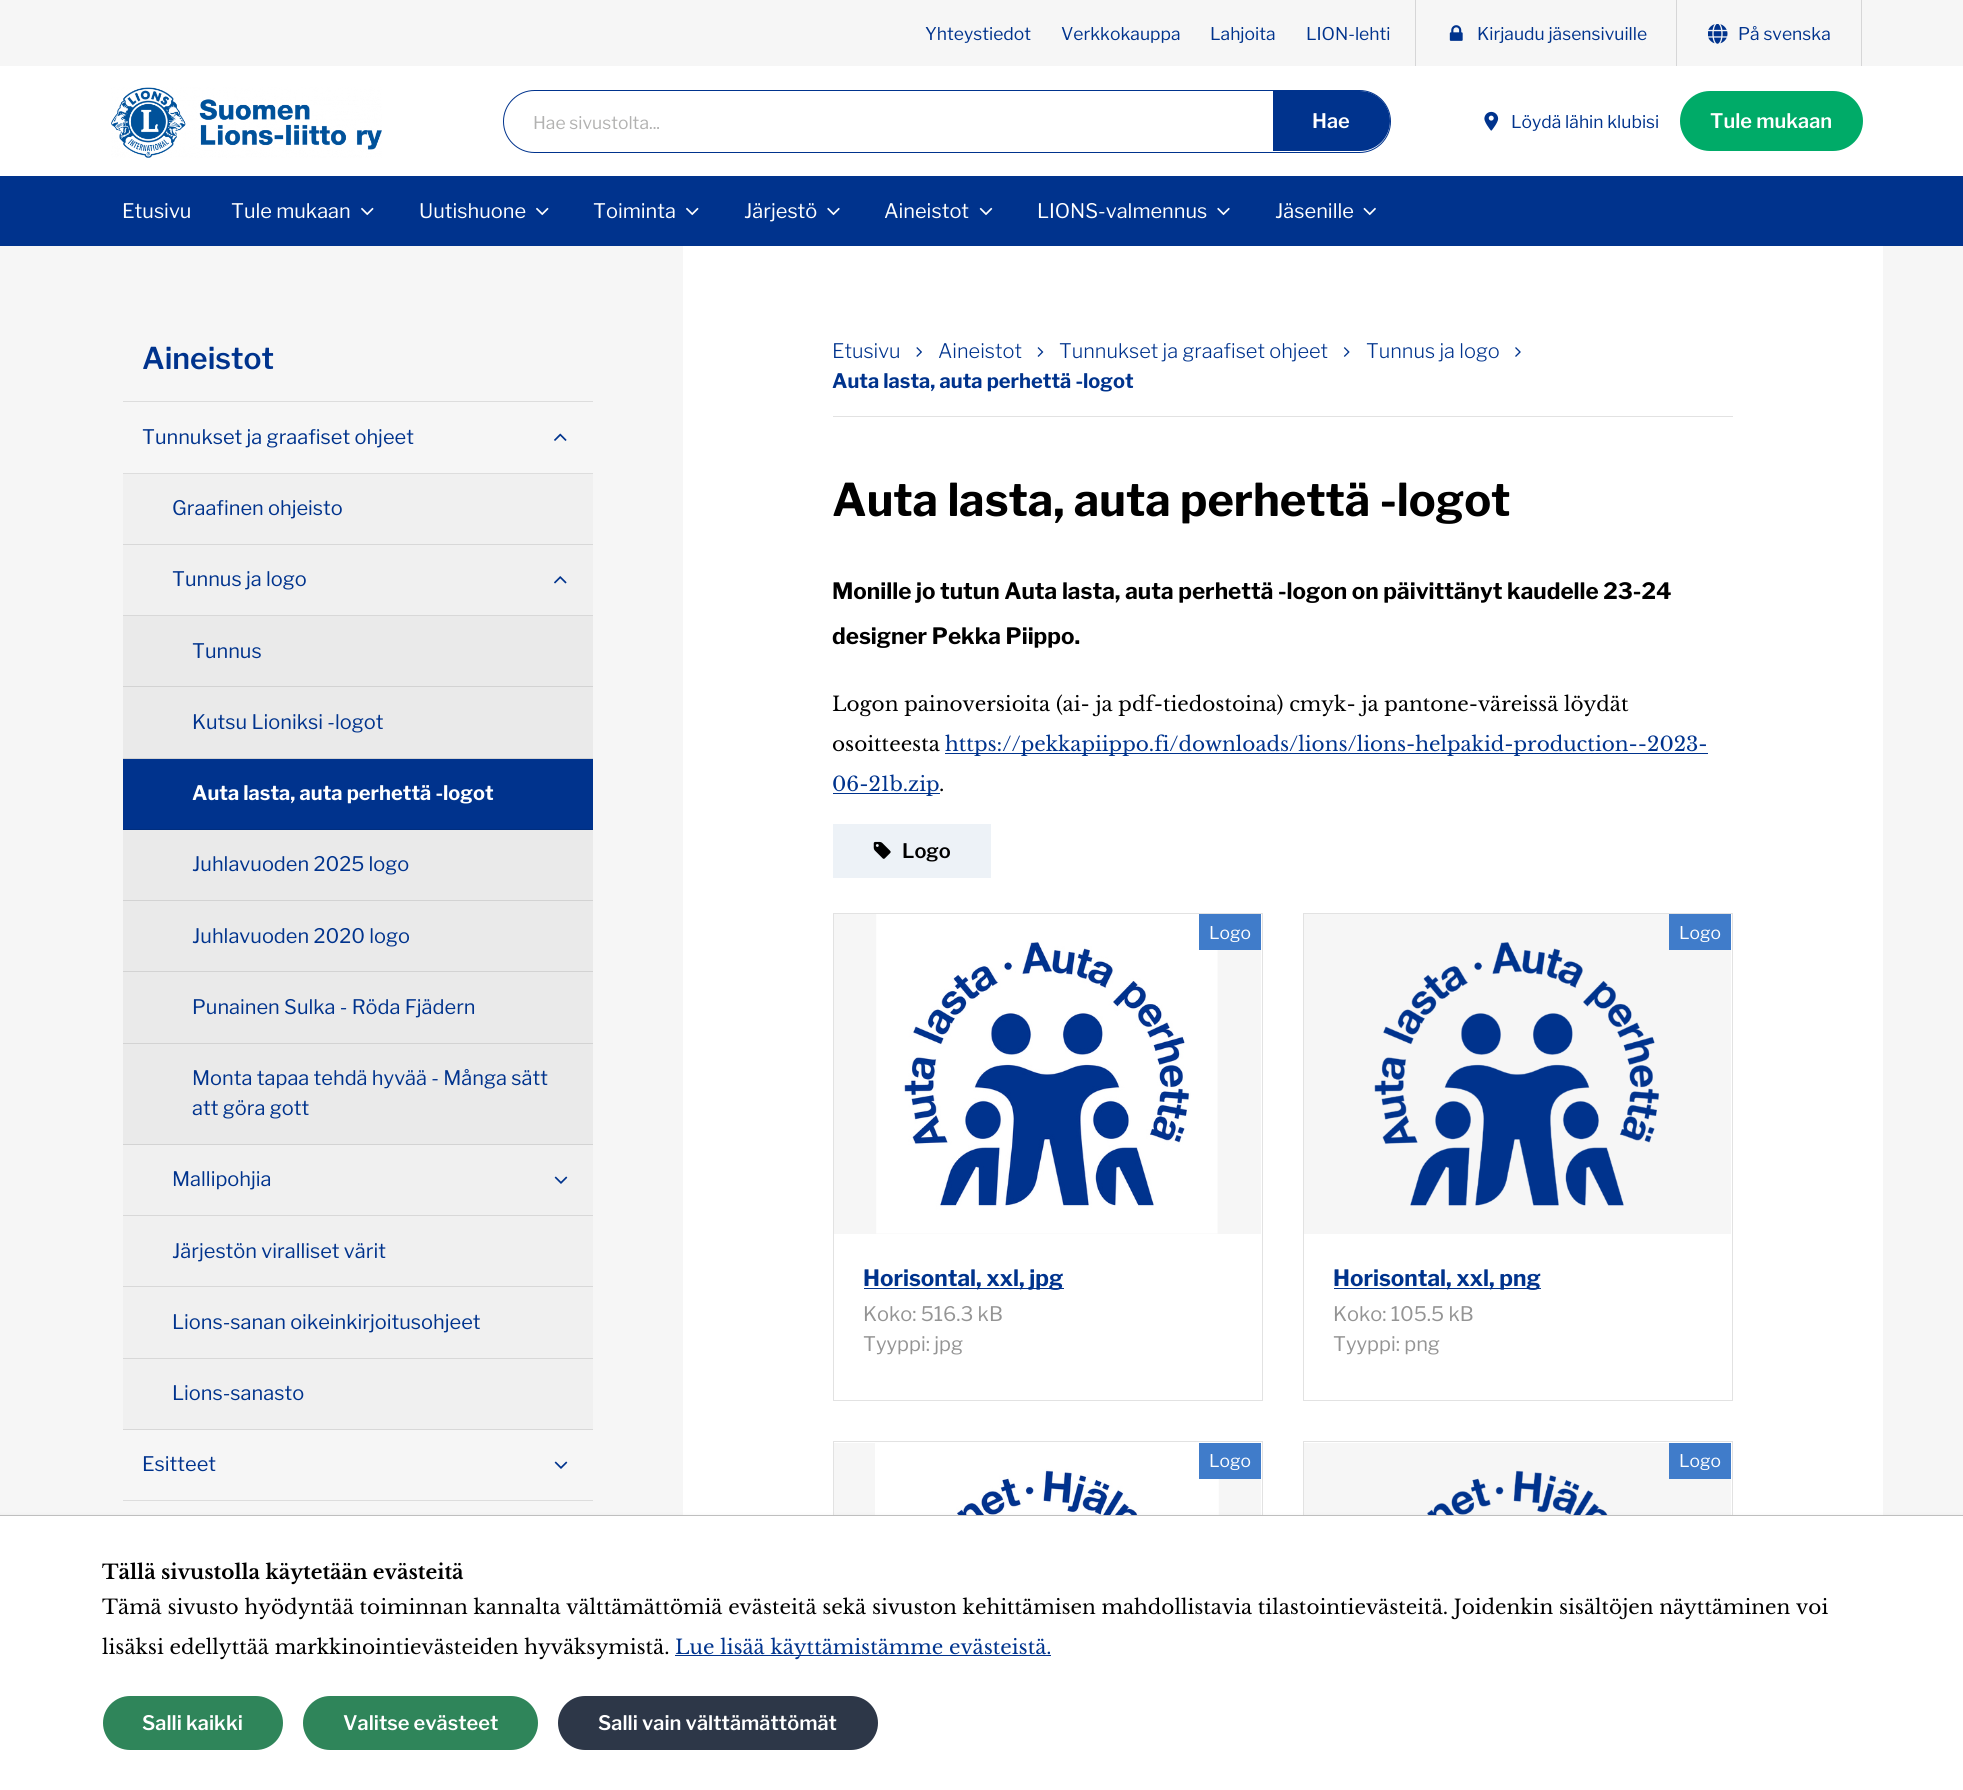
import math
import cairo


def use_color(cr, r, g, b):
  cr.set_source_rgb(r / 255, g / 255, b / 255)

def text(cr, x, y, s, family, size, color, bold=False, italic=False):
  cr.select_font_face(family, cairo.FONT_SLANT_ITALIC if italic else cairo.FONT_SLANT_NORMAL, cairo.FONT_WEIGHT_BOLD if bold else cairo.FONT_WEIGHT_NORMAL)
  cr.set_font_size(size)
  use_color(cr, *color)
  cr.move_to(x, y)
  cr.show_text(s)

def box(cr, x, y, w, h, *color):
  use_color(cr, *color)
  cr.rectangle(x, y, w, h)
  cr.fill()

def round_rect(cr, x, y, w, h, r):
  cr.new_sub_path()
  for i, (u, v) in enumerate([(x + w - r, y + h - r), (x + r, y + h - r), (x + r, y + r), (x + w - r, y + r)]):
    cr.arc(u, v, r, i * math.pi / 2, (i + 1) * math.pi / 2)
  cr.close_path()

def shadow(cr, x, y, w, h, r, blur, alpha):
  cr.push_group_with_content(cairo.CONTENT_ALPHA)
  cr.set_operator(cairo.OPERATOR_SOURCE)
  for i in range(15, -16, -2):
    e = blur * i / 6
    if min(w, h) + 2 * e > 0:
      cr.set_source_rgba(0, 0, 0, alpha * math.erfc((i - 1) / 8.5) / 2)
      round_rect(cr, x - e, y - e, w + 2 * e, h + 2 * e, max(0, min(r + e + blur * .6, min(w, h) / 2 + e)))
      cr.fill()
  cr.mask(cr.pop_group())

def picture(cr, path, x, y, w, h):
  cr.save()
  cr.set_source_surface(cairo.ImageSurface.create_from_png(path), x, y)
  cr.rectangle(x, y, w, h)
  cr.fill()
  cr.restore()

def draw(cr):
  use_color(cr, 255, 255, 255)
  cr.paint()
  box(cr, 0, 0, 1963, 66, 246, 246, 246)
  box(cr, 1861, 0, 1, 66, 214, 214, 215)
  box(cr, 1415, 0, 1, 66, 214, 214, 215)
  picture(cr, "img_01.png", 1449, 25, 14, 16)
  box(cr, 1676, 0, 1, 66, 214, 214, 215)
  picture(cr, "img_02.png", 1708, 24, 20, 20)
  picture(cr, "img_03.png", 111, 87, 271, 71)
  round_rect(cr, 503.5, 90.5, 887, 62, 31)
  use_color(cr, 0, 51, 141)
  cr.set_line_width(1)
  cr.stroke()
  cr.new_path()
  cr.move_to(1273, 91)
  cr.line_to(1360, 91)
  cr.curve_to(1376.5, 91, 1390, 104.5, 1390, 121)
  cr.curve_to(1390, 137.5, 1376.5, 151, 1360, 151)
  cr.line_to(1273, 151)
  cr.close_path()
  cr.fill()
  picture(cr, "img_04.png", 1484, 111, 15, 20)
  use_color(cr, 0, 171, 104)
  round_rect(cr, 1680, 91, 183, 60, 30)
  cr.fill()
  box(cr, 0, 176, 1963, 70, 0, 51, 141)
  picture(cr, "img_05.png", 361, 207, 13, 9)
  picture(cr, "img_05.png", 536, 207, 13, 9)
  picture(cr, "img_05.png", 686, 207, 13, 9)
  picture(cr, "img_06.png", 827, 207, 13, 9)
  picture(cr, "img_07.png", 979, 207, 14, 9)
  picture(cr, "img_06.png", 1217, 207, 13, 9)
  picture(cr, "img_08.png", 1363, 207, 13, 9)
  box(cr, 0, 246, 1963, 1269, 246, 246, 246)
  box(cr, 123, 401, 470, 1, 221, 221, 221)
  box(cr, 123, 473, 470, 1, 221, 221, 221)
  picture(cr, "img_09.png", 554, 433, 13, 8)
  box(cr, 123, 474, 470, 70, 240, 240, 240)
  box(cr, 123, 544, 470, 1, 216, 216, 216)
  box(cr, 123, 545, 470, 70, 240, 240, 240)
  box(cr, 123, 615, 470, 1, 216, 216, 216)
  picture(cr, "img_10.png", 554, 576, 13, 8)
  box(cr, 123, 616, 470, 142, 234, 234, 234)
  box(cr, 123, 686, 470, 1, 211, 211, 211)
  box(cr, 123, 758, 470, 1, 211, 211, 211)
  box(cr, 123, 759, 470, 70, 0, 51, 141)
  box(cr, 123, 829, 470, 1, 0, 46, 127)
  box(cr, 123, 830, 470, 70, 234, 234, 234)
  box(cr, 123, 900, 470, 1, 211, 211, 211)
  box(cr, 123, 901, 470, 142, 234, 234, 234)
  box(cr, 123, 971, 470, 1, 211, 211, 211)
  box(cr, 123, 1043, 470, 1, 211, 211, 211)
  box(cr, 123, 1044, 470, 100, 234, 234, 234)
  box(cr, 123, 1144, 470, 1, 211, 211, 211)
  box(cr, 123, 1145, 470, 70, 240, 240, 240)
  box(cr, 123, 1215, 470, 1, 216, 216, 216)
  picture(cr, "img_11.png", 554, 1176, 14, 8)
  box(cr, 123, 1216, 470, 142, 240, 240, 240)
  box(cr, 123, 1286, 470, 1, 216, 216, 216)
  box(cr, 123, 1358, 470, 1, 216, 216, 216)
  box(cr, 123, 1359, 470, 70, 240, 240, 240)
  box(cr, 123, 1429, 470, 1, 216, 216, 216)
  box(cr, 123, 1500, 470, 1, 221, 221, 221)
  picture(cr, "img_12.png", 554, 1461, 14, 8)
  box(cr, 683, 246, 1200, 1269, 255, 255, 255)
  box(cr, 833, 416, 900, 1, 226, 226, 226)
  picture(cr, "img_13.png", 916, 347, 6, 10)
  picture(cr, "img_14.png", 1037, 347, 7, 10)
  picture(cr, "img_15.png", 1343, 347, 7, 10)
  picture(cr, "img_16.png", 1515, 347, 6, 10)
  box(cr, 945, 753, 763, 1, 0, 51, 141)
  box(cr, 833, 793, 107, 1, 0, 51, 141)
  box(cr, 833, 824, 158, 54, 237, 242, 247)
  picture(cr, "img_17.png", 873, 841, 18, 18)
  cr.rectangle(833.5, 913.5, 429, 487)
  use_color(cr, 226, 226, 226)
  cr.stroke()
  box(cr, 834, 914, 427, 320, 246, 246, 246)
  picture(cr, "img_18.png", 876, 914, 342, 320)
  box(cr, 1199, 914, 62, 36, 64, 124, 202)
  box(cr, 864, 1288, 200, 1, 0, 51, 141)
  cr.rectangle(1303.5, 913.5, 429, 487)
  use_color(cr, 226, 226, 226)
  cr.stroke()
  box(cr, 1304, 914, 427, 320, 246, 246, 246)
  box(cr, 1669, 914, 62, 36, 64, 124, 202)
  picture(cr, "img_19.png", 1374, 942, 286, 264)
  box(cr, 1334, 1288, 207, 1, 0, 51, 141)
  cr.rectangle(833.5, 1441.5, 429, 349)
  use_color(cr, 226, 226, 226)
  cr.stroke()
  box(cr, 834, 1443, 427, 72, 246, 246, 246)
  picture(cr, "img_20.png", 875, 1443, 344, 72)
  box(cr, 1199, 1443, 62, 36, 64, 124, 202)
  cr.rectangle(1303.5, 1441.5, 429, 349)
  use_color(cr, 226, 226, 226)
  cr.stroke()
  box(cr, 1304, 1443, 427, 72, 246, 246, 246)
  box(cr, 1669, 1443, 62, 36, 64, 124, 202)
  picture(cr, "img_21.png", 1427, 1470, 181, 45)
  use_color(cr, 0, 0, 0)
  shadow(cr, 0, 1516, 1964, 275, 0, 2, 0.1)
  box(cr, 0, 1516, 1963, 274, 255, 255, 255)
  box(cr, 0, 1515, 1963, 1, 191, 191, 191)
  box(cr, 675, 1655, 376, 1, 0, 51, 141)
  use_color(cr, 47, 133, 90)
  round_rect(cr, 103, 1696, 180, 54, 27)
  cr.fill()
  round_rect(cr, 303, 1696, 235, 54, 27)
  cr.fill()
  use_color(cr, 45, 55, 72)
  round_rect(cr, 558, 1696, 320, 54, 27)
  cr.fill()
  text(cr, 925, 40, "Yhteystiedot", "Libre Franklin Thin", 17.5, (0, 51, 141))
  text(cr, 1061, 40, "Verkkokauppa", "Libre Franklin Thin", 17.5, (0, 51, 141))
  text(cr, 1210, 40, "Lahjoita", "Libre Franklin Thin", 17.5, (0, 51, 141))
  text(cr, 1306, 40, "LION-lehti", "Libre Franklin Thin", 17.5, (0, 51, 141))
  text(cr, 1477, 40, "Kirjaudu jäsensivuille", "Libre Franklin Thin", 17.5, (0, 51, 141))
  text(cr, 1738, 40, "På svenska", "Libre Franklin Thin", 17.5, (0, 51, 141))
  text(cr, 533, 129, "Hae sivustolta...", "Libre Franklin Thin", 17.5, (178, 178, 177))
  text(cr, 1312, 128, "Hae", "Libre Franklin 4 Thin", 20, (255, 255, 255))
  text(cr, 1511, 128, "Löydä lähin klubisi", "Libre Franklin Thin", 17.5, (0, 51, 141))
  text(cr, 1710, 128, "Tule mukaan", "Libre Franklin 4 Thin", 20, (255, 255, 255))
  text(cr, 122, 218, "Etusivu", "Libre Franklin Thin", 20, (255, 255, 255))
  text(cr, 231, 218, "Tule mukaan", "Libre Franklin Thin", 20, (255, 255, 255))
  text(cr, 419, 218, "Uutishuone", "Libre Franklin Thin", 20, (255, 255, 255))
  text(cr, 593, 218, "Toiminta", "Libre Franklin Thin", 20, (255, 255, 255))
  text(cr, 744, 218, "Järjestö", "Libre Franklin Thin", 20, (255, 255, 255))
  text(cr, 884, 218, "Aineistot", "Libre Franklin Thin", 20, (255, 255, 255))
  text(cr, 1037, 218, "LIONS-valmennus", "Libre Franklin Thin", 20, (255, 255, 255))
  text(cr, 1275, 218, "Jäsenille", "Libre Franklin Thin", 20, (255, 255, 255))
  text(cr, 142, 369, "Aineistot", "Libre Franklin 4 Thin", 30, (0, 51, 141))
  text(cr, 142, 444, "Tunnukset ja graafiset ohjeet", "Libre Franklin Thin", 20, (0, 51, 141))
  text(cr, 172, 515, "Graafinen ohjeisto", "Libre Franklin Thin", 20, (0, 51, 141))
  text(cr, 172, 586, "Tunnus ja logo", "Libre Franklin Thin", 20, (0, 51, 141))
  text(cr, 192, 658, "Tunnus", "Libre Franklin Thin", 20, (0, 51, 141))
  text(cr, 192, 729, "Kutsu Lioniksi -logot", "Libre Franklin Thin", 20, (0, 51, 141))
  text(cr, 192, 800, "Auta lasta, auta perhettä -logot", "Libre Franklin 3 Thin", 20, (255, 255, 255))
  text(cr, 192, 871, "Juhlavuoden 2025 logo", "Libre Franklin Thin", 20, (0, 51, 141))
  text(cr, 192, 943, "Juhlavuoden 2020 logo", "Libre Franklin Thin", 20, (0, 51, 141))
  text(cr, 192, 1014, "Punainen Sulka - Röda Fjädern", "Libre Franklin Thin", 20, (0, 51, 141))
  text(cr, 192, 1085, "Monta tapaa tehdä hyvää - Många sätt", "Libre Franklin Thin", 20, (0, 51, 141))
  text(cr, 192, 1115, "att göra gott", "Libre Franklin Thin", 20, (0, 51, 141))
  text(cr, 172, 1186, "Mallipohjia", "Libre Franklin Thin", 20, (0, 51, 141))
  text(cr, 172, 1258, "Järjestön viralliset värit", "Libre Franklin Thin", 20, (0, 51, 141))
  text(cr, 172, 1329, "Lions-sanan oikeinkirjoitusohjeet", "Libre Franklin Thin", 20, (0, 51, 141))
  text(cr, 172, 1400, "Lions-sanasto", "Libre Franklin Thin", 20, (0, 51, 141))
  text(cr, 142, 1471, "Esitteet", "Libre Franklin Thin", 20, (0, 51, 141))
  text(cr, 832, 358, "Etusivu", "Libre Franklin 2 Thin", 20, (0, 51, 141))
  text(cr, 938, 358, "Aineistot", "Libre Franklin 2 Thin", 20, (0, 51, 141))
  text(cr, 1059, 358, "Tunnukset ja graafiset ohjeet", "Libre Franklin 2 Thin", 20, (0, 51, 141))
  text(cr, 1366, 358, "Tunnus ja logo", "Libre Franklin 2 Thin", 20, (0, 51, 141))
  text(cr, 832, 388, "Auta lasta, auta perhettä -logot", "Libre Franklin 3 Thin", 20, (0, 51, 141))
  text(cr, 832, 516, "Auta lasta, auta perhettä -logot", "Libre Franklin 3 Thin", 45, (0, 0, 0))
  text(cr, 832, 599, "Monille jo tutun Auta lasta, auta perhettä -logon on päivittänyt kaudelle 23-24", "Libre Franklin 3 Thin", 22.5, (0, 0, 0))
  text(cr, 832, 644, "designer Pekka Piippo.", "Libre Franklin 3 Thin", 22.5, (0, 0, 0))
  text(cr, 832, 711, "Logon painoversioita (ai- ja pdf-tiedostoina) cmyk- ja pantone-väreissä löydät", "Libre Baskerville", 20, (0, 0, 0))
  text(cr, 832, 751, "osoitteesta", "Libre Baskerville", 20, (0, 0, 0))
  text(cr, 945, 751, "https://pekkapiippo.fi/downloads/lions/lions-helpakid-production--2023-", "Libre Baskerville", 20, (0, 51, 141))
  text(cr, 832, 791, "06-21b.zip", "Libre Baskerville", 20, (0, 51, 141))
  text(cr, 939, 791, ".", "Libre Baskerville", 20, (0, 0, 0))
  text(cr, 902, 858, "Logo", "Libre Franklin 4 Thin", 20, (0, 0, 0))
  text(cr, 1209, 939, "Logo", "Libre Franklin Thin", 17.5, (255, 255, 255))
  text(cr, 863, 1286, "Horisontal, xxl, jpg", "Libre Franklin 3 Thin", 22.5, (0, 51, 141))
  text(cr, 863, 1321, "Koko: 516.3 kB", "Libre Franklin Thin", 20, (148, 148, 148))
  text(cr, 863, 1351, "Tyyppi: jpg", "Libre Franklin Thin", 20, (148, 148, 148))
  text(cr, 1679, 939, "Logo", "Libre Franklin Thin", 17.5, (255, 255, 255))
  text(cr, 1333, 1286, "Horisontal, xxl, png", "Libre Franklin 3 Thin", 22.5, (0, 51, 141))
  text(cr, 1333, 1321, "Koko: 105.5 kB", "Libre Franklin Thin", 20, (148, 148, 148))
  text(cr, 1333, 1351, "Tyyppi: png", "Libre Franklin Thin", 20, (148, 148, 148))
  text(cr, 1209, 1467, "Logo", "Libre Franklin Thin", 17.5, (255, 255, 255))
  text(cr, 1679, 1467, "Logo", "Libre Franklin Thin", 17.5, (255, 255, 255))
  text(cr, 102, 1579, "Tällä sivustolla käytetään evästeitä", "Libre Baskerville", 20, (0, 0, 0), bold=True)
  text(cr, 102, 1614, "Tämä sivusto hyödyntää toiminnan kannalta välttämättömiä evästeitä sekä sivuston kehittämisen mahdollistavia tilastointievästeitä. Joidenkin sisältöjen näyttäminen voi", "Libre Baskerville", 20, (0, 0, 0))
  text(cr, 102, 1654, "lisäksi edellyttää markkinointievästeiden hyväksymistä.", "Libre Baskerville", 20, (0, 0, 0))
  text(cr, 675, 1654, "Lue lisää käyttämistämme evästeistä.", "Libre Baskerville", 20, (0, 51, 141))
  text(cr, 142, 1730, "Salli kaikki", "Libre Franklin 4 Thin", 20, (255, 255, 255))
  text(cr, 343, 1730, "Valitse evästeet", "Libre Franklin 4 Thin", 20, (255, 255, 255))
  text(cr, 598, 1730, "Salli vain välttämättömät", "Libre Franklin 4 Thin", 20, (255, 255, 255))


surface = cairo.ImageSurface(cairo.FORMAT_RGB24, 1963, 1790)
cr = cairo.Context(surface)
options = cairo.FontOptions()
options.set_hint_metrics(cairo.HINT_METRICS_OFF)
options.set_hint_style(cairo.HINT_STYLE_NONE)
cr.set_font_options(options)
cr.set_miter_limit(4)
draw(cr)
surface.write_to_png("out.png")
